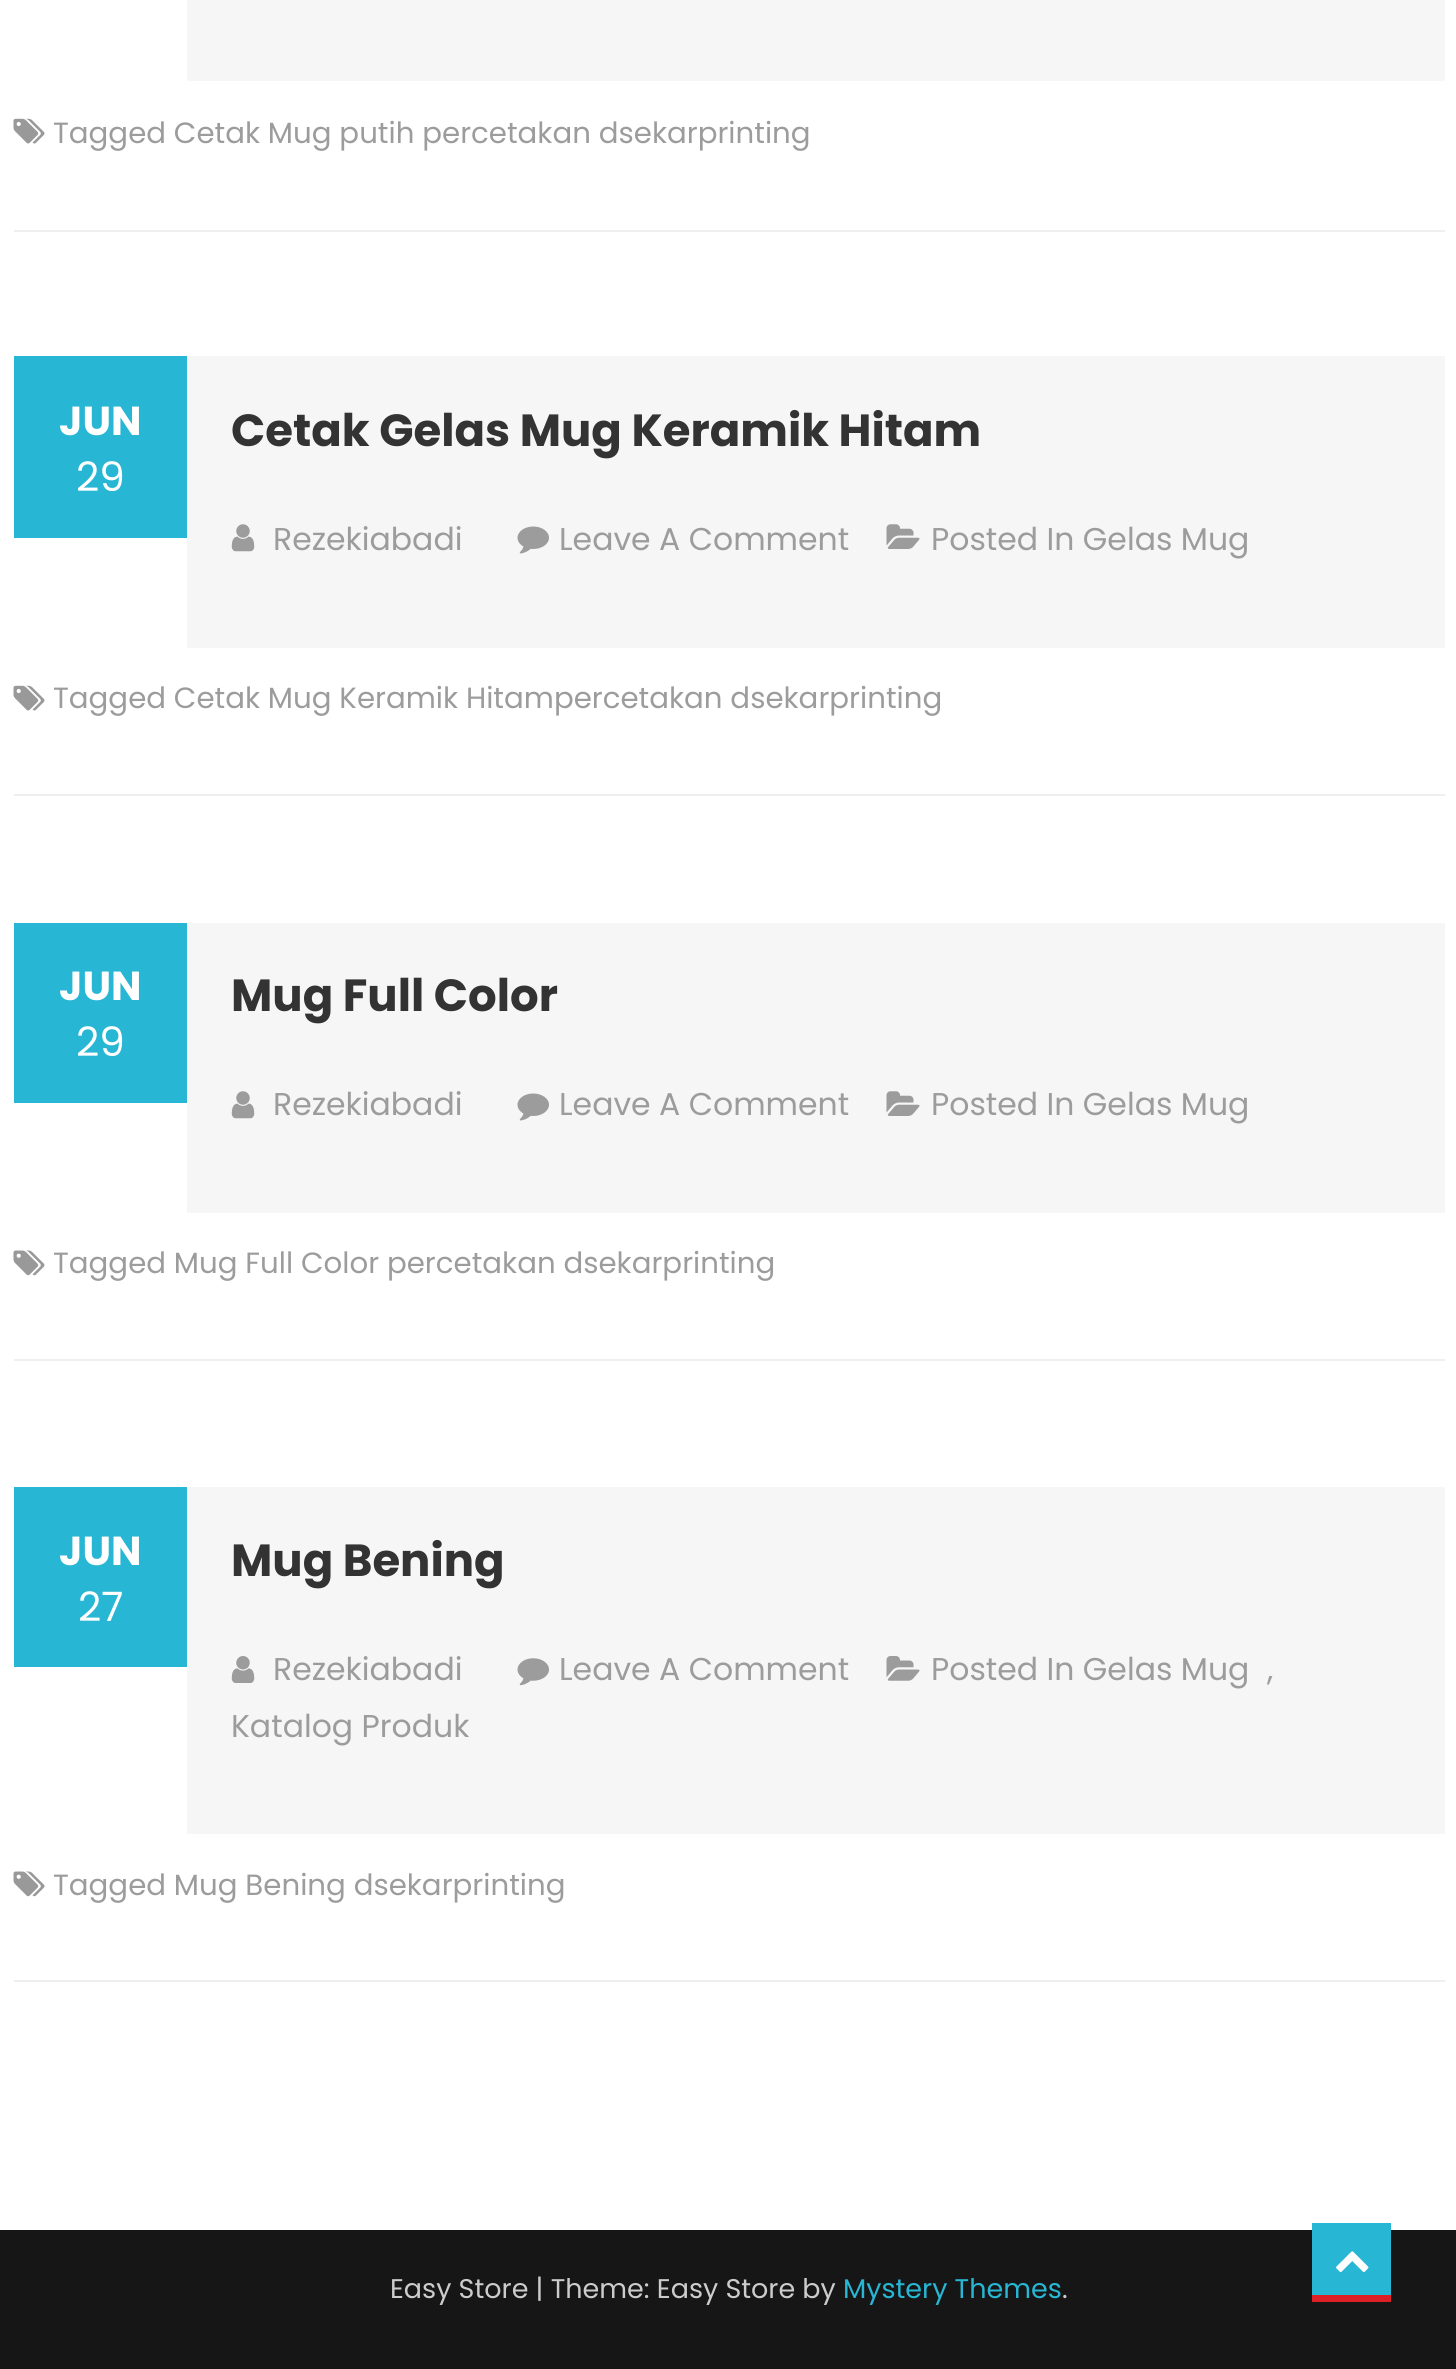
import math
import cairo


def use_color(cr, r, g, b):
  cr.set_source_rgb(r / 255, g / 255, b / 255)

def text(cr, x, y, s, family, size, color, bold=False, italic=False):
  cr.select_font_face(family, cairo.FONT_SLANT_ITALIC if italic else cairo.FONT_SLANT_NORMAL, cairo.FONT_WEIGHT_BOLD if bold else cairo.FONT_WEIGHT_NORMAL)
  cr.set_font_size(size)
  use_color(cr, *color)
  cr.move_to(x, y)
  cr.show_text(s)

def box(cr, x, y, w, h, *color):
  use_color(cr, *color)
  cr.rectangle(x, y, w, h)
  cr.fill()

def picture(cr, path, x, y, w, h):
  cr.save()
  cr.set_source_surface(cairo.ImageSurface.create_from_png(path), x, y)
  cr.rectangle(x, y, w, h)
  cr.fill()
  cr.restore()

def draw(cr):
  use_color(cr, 255, 255, 255)
  cr.paint()
  box(cr, 14, 230, 1431, 2, 239, 239, 239)
  box(cr, 187, 0, 1258, 81, 246, 246, 246)
  picture(cr, "img_01.png", 13, 118, 32, 26)
  box(cr, 14, 794, 1431, 2, 239, 239, 239)
  box(cr, 14, 356, 173, 182, 39, 182, 212)
  box(cr, 187, 356, 1258, 292, 246, 246, 246)
  picture(cr, "img_02.png", 231, 524, 24, 28)
  picture(cr, "img_03.png", 517, 526, 32, 28)
  picture(cr, "img_04.png", 886, 524, 34, 25)
  picture(cr, "img_01.png", 13, 685, 32, 26)
  box(cr, 14, 1359, 1431, 2, 239, 239, 239)
  box(cr, 14, 923, 173, 180, 39, 182, 212)
  box(cr, 187, 923, 1258, 290, 246, 246, 246)
  picture(cr, "img_02.png", 231, 1091, 24, 28)
  picture(cr, "img_03.png", 517, 1093, 32, 28)
  picture(cr, "img_04.png", 886, 1091, 34, 25)
  picture(cr, "img_05.png", 13, 1250, 32, 26)
  box(cr, 14, 1980, 1431, 2, 239, 239, 239)
  box(cr, 14, 1487, 173, 180, 39, 182, 212)
  box(cr, 187, 1487, 1258, 347, 246, 246, 246)
  picture(cr, "img_06.png", 231, 1656, 24, 27)
  picture(cr, "img_07.png", 517, 1658, 32, 28)
  picture(cr, "img_08.png", 886, 1656, 34, 25)
  picture(cr, "img_05.png", 13, 1871, 32, 26)
  box(cr, 0, 2230, 1456, 139, 22, 22, 22)
  box(cr, 1312, 2223, 79, 72, 39, 182, 212)
  box(cr, 1312, 2295, 79, 7, 221, 31, 38)
  picture(cr, "img_09.png", 1336, 2251, 33, 22)
  text(cr, 53, 143, "Tagged Cetak Mug putih percetakan dsekarprinting", "Poppins", 29.25, (156, 156, 156))
  text(cr, 59, 435, "JUN", "Poppins", 40.5, (255, 255, 255), bold=True)
  text(cr, 76, 491, "29", "Poppins", 40.5, (255, 255, 255))
  text(cr, 231, 446, "Cetak Gelas Mug Keramik Hitam", "Poppins", 45, (51, 51, 51), bold=True)
  text(cr, 273, 550, "Rezekiabadi", "Poppins", 31.5, (156, 156, 156))
  text(cr, 559, 550, "Leave A Comment", "Poppins", 31.5, (156, 156, 156))
  text(cr, 931, 550, "Posted In Gelas Mug", "Poppins", 31.5, (156, 156, 156))
  text(cr, 53, 708, "Tagged Cetak Mug Keramik Hitampercetakan dsekarprinting", "Poppins", 29.25, (156, 156, 156))
  text(cr, 59, 1000, "JUN", "Poppins", 40.5, (255, 255, 255), bold=True)
  text(cr, 76, 1056, "29", "Poppins", 40.5, (255, 255, 255))
  text(cr, 231, 1011, "Mug Full Color", "Poppins", 45, (51, 51, 51), bold=True)
  text(cr, 273, 1115, "Rezekiabadi", "Poppins", 31.5, (156, 156, 156))
  text(cr, 559, 1115, "Leave A Comment", "Poppins", 31.5, (156, 156, 156))
  text(cr, 931, 1115, "Posted In Gelas Mug", "Poppins", 31.5, (156, 156, 156))
  text(cr, 53, 1273, "Tagged Mug Full Color percetakan dsekarprinting", "Poppins", 29.25, (156, 156, 156))
  text(cr, 59, 1565, "JUN", "Poppins", 40.5, (255, 255, 255), bold=True)
  text(cr, 78, 1621, "27", "Poppins", 40.5, (255, 255, 255))
  text(cr, 231, 1576, "Mug Bening", "Poppins", 45, (51, 51, 51), bold=True)
  text(cr, 273, 1680, "Rezekiabadi", "Poppins", 31.5, (156, 156, 156))
  text(cr, 559, 1680, "Leave A Comment", "Poppins", 31.5, (156, 156, 156))
  text(cr, 931, 1680, "Posted In Gelas Mug", "Poppins", 31.5, (156, 156, 156))
  text(cr, 1267, 1680, ",", "Poppins", 31.5, (156, 156, 156))
  text(cr, 231, 1737, "Katalog Produk", "Poppins", 31.5, (156, 156, 156))
  text(cr, 53, 1895, "Tagged Mug Bening dsekarprinting", "Poppins", 29.25, (156, 156, 156))
  text(cr, 390, 2298, "Easy Store | Theme: Easy Store by", "Poppins", 27, (204, 204, 204))
  text(cr, 843, 2298, "Mystery Themes", "Poppins", 27, (39, 182, 212))
  text(cr, 1062, 2298, ".", "Poppins", 27, (204, 204, 204))


surface = cairo.ImageSurface(cairo.FORMAT_RGB24, 1456, 2369)
cr = cairo.Context(surface)
options = cairo.FontOptions()
options.set_hint_metrics(cairo.HINT_METRICS_OFF)
options.set_hint_style(cairo.HINT_STYLE_NONE)
cr.set_font_options(options)
cr.set_miter_limit(4)
draw(cr)
surface.write_to_png("out.png")
